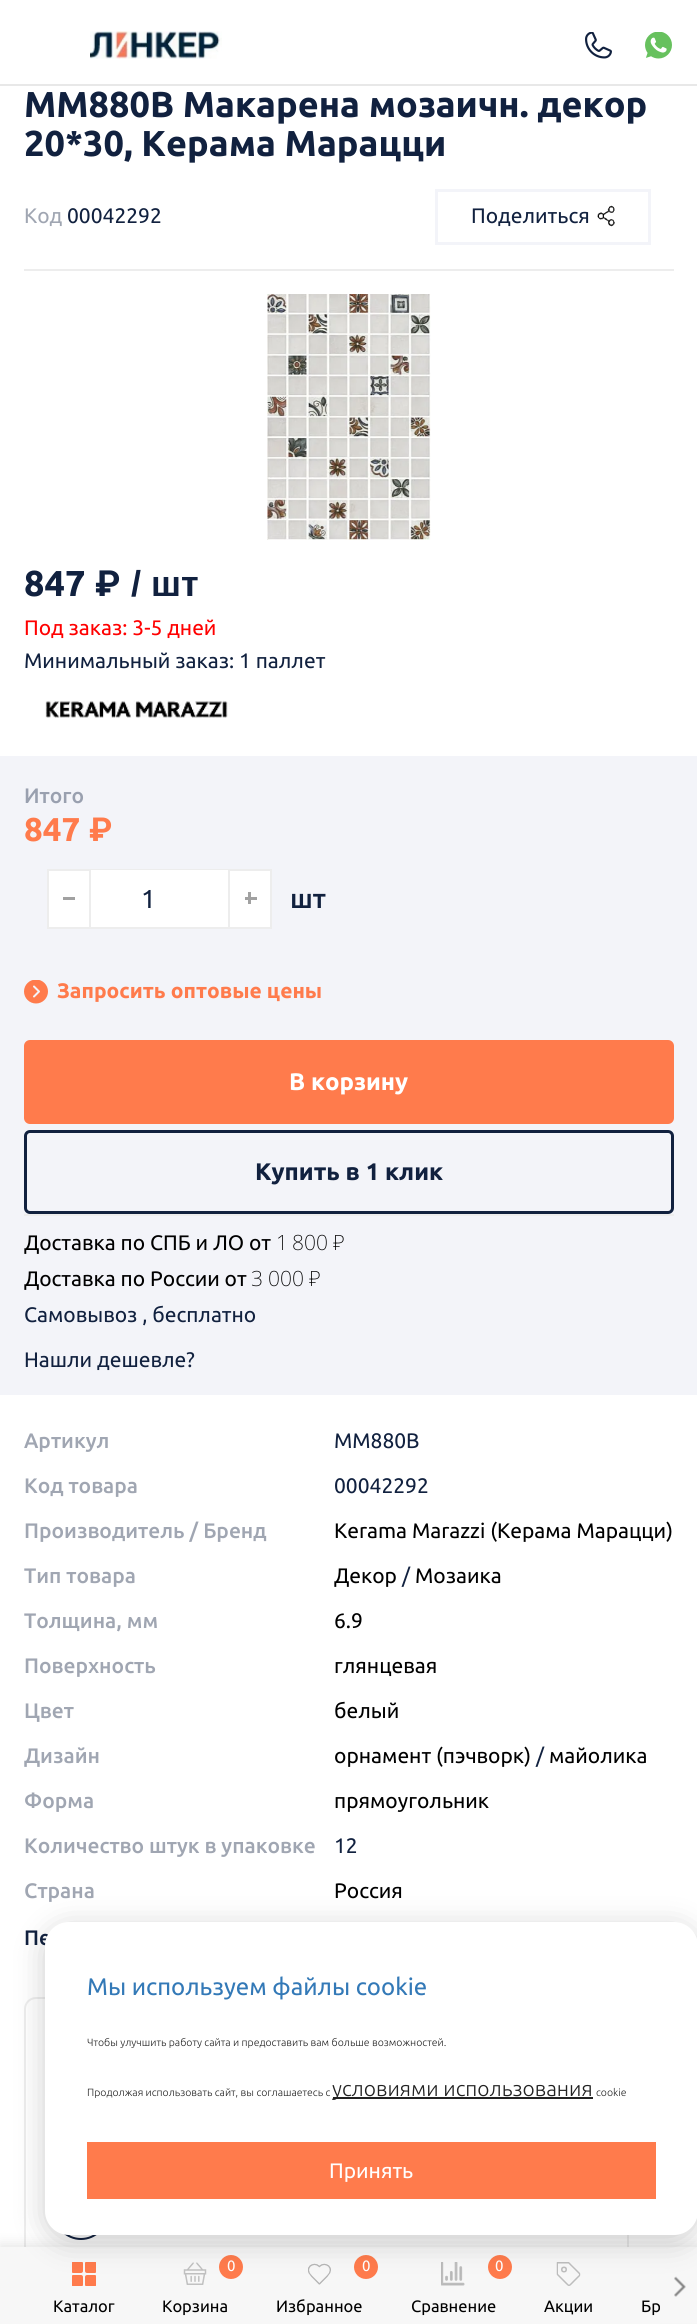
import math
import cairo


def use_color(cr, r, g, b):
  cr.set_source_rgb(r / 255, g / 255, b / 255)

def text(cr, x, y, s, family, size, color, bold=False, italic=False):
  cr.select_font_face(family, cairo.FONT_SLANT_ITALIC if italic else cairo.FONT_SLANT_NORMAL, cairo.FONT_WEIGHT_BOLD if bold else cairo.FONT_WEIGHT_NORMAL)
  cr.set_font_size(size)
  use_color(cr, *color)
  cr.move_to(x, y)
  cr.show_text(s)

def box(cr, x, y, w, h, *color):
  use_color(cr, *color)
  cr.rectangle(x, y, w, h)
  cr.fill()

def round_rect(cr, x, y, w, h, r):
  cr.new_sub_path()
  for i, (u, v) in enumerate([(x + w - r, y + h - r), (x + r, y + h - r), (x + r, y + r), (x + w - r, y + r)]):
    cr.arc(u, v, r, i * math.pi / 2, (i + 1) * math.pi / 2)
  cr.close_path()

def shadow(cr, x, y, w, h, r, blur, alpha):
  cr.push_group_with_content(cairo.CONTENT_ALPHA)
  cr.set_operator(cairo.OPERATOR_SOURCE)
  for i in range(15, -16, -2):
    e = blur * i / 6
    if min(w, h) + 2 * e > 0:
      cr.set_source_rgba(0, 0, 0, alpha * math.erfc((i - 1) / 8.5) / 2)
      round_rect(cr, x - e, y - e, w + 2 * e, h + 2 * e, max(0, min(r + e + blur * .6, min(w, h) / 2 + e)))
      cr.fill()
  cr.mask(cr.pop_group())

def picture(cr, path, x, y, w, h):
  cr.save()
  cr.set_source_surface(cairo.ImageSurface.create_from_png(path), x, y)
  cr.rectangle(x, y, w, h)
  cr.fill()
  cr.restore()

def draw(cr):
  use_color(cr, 255, 255, 255)
  cr.paint()
  box(cr, 0, 84, 697, 2, 232, 232, 232)
  picture(cr, "img_01.png", 90, 31, 132, 28)
  picture(cr, "img_02.png", 585, 32, 27, 27)
  picture(cr, "img_03.png", 645, 32, 27, 27)
  box(cr, 24, 269, 650, 2, 237, 237, 237)
  cr.rectangle(436.5, 190.5, 213, 53)
  use_color(cr, 243, 244, 249)
  cr.set_line_width(3)
  cr.stroke()
  picture(cr, "img_04.png", 597, 205, 18, 22)
  picture(cr, "img_05.png", 267, 294, 164, 246)
  picture(cr, "img_06.png", 45, 700, 185, 18)
  box(cr, 0, 756, 697, 639, 243, 244, 249)
  use_color(cr, 255, 255, 255)
  cr.rectangle(48, 870, 223, 58)
  cr.fill_preserve()
  use_color(cr, 237, 237, 237)
  cr.set_line_width(2)
  cr.stroke()
  box(cr, 89, 870, 2, 57, 237, 237, 237)
  box(cr, 63, 897, 12, 3, 161, 161, 161)
  box(cr, 91, 870, 137, 1, 255, 255, 255)
  box(cr, 228, 870, 2, 57, 237, 237, 237)
  box(cr, 245, 897, 12, 3, 161, 161, 161)
  box(cr, 248, 892, 3, 12, 161, 161, 161)
  picture(cr, "img_07.png", 24, 980, 24, 24)
  use_color(cr, 255, 123, 76)
  round_rect(cr, 25, 1041, 648, 82, 5)
  cr.fill_preserve()
  cr.stroke()
  box(cr, 24, 1214, 650, 2, 237, 237, 237)
  round_rect(cr, 25.5, 1131.5, 647, 81, 4.5)
  use_color(cr, 17, 33, 63)
  cr.set_line_width(3)
  cr.stroke()
  round_rect(cr, 25, 1998, 603, 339, 11)
  use_color(cr, 237, 237, 237)
  cr.set_line_width(2)
  cr.stroke()
  cr.arc(81, 2213, 26, 0, 2 * math.pi)
  use_color(cr, 17, 33, 63)
  cr.stroke()
  use_color(cr, 0, 0, 0)
  shadow(cr, 0, 2244, 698, 78, 0, 6, 0.1)
  box(cr, 0, 2247, 660, 77, 247, 247, 247)
  picture(cr, "img_08.png", 72, 2262, 24, 24)
  use_color(cr, 255, 123, 76)
  cr.arc(231, 2267, 12, 0, 2 * math.pi)
  cr.fill()
  picture(cr, "img_09.png", 183, 2262, 24, 23)
  cr.arc(366, 2267, 12, 0, 2 * math.pi)
  cr.fill()
  picture(cr, "img_10.png", 308, 2263, 23, 22)
  cr.arc(500, 2267, 12, 0, 2 * math.pi)
  cr.fill()
  picture(cr, "img_11.png", 441, 2262, 24, 24)
  picture(cr, "img_12.png", 556, 2262, 25, 24)
  text(cr, 24, 117, "MM880B Макарена мозаичн. декор", "Ubuntu", 36, (17, 33, 63), bold=True)
  text(cr, 24, 156, "20*30, Керама Марацци", "Ubuntu", 36, (17, 33, 63), bold=True)
  text(cr, 24, 223, "Код", "Ubuntu", 21, (160, 166, 178))
  text(cr, 67, 223, "00042292", "Ubuntu", 21, (17, 33, 63))
  text(cr, 471, 223, "Поделиться", "Ubuntu", 21, (17, 33, 63))
  text(cr, 24, 596, "847", "Ubuntu", 36, (17, 33, 63), bold=True)
  text(cr, 95, 596, "₽", "Roboto", 36, (17, 33, 63), bold=True)
  text(cr, 131, 596, "/ шт", "Liberation Sans", 36, (17, 33, 63), bold=True)
  text(cr, 24, 635, "Под заказ: 3-5 дней", "Ubuntu", 21, (255, 0, 0))
  text(cr, 24, 668, "Минимальный заказ: 1 паллет", "Ubuntu", 21, (17, 33, 63))
  text(cr, 24, 803, "Итого", "Ubuntu Medium", 21, (153, 160, 175))
  text(cr, 24, 841, "847", "Ubuntu", 33, (255, 123, 76), bold=True)
  text(cr, 89, 841, "₽", "Roboto", 33, (255, 123, 76), bold=True)
  text(cr, 141, 908, "1", "Ubuntu", 26, (17, 33, 63))
  text(cr, 290, 908, "шт", "Ubuntu Medium", 27, (17, 33, 63))
  text(cr, 57, 998, "Запросить оптовые цены", "Ubuntu", 21, (255, 123, 76), bold=True)
  text(cr, 289, 1090, "В корзину", "Ubuntu", 24, (255, 255, 255), bold=True)
  text(cr, 255, 1180, "Купить в 1 клик", "Ubuntu", 24, (17, 33, 63), bold=True)
  text(cr, 24, 1250, "Доставка по СПБ и ЛО от", "Ubuntu", 21, (0, 0, 0))
  text(cr, 276, 1250, "1", "Noto Sans ExtraLight", 21, (0, 0, 0))
  text(cr, 292, 1250, "800", "Noto Sans ExtraLight", 21, (0, 0, 0))
  text(cr, 333, 1250, "₽", "Noto Sans ExtraLight", 21, (0, 0, 0))
  text(cr, 24, 1286, "Доставка по России от", "Ubuntu", 21, (0, 0, 0))
  text(cr, 251, 1286, "3", "Noto Sans ExtraLight", 21, (0, 0, 0))
  text(cr, 268, 1286, "000", "Noto Sans ExtraLight", 21, (0, 0, 0))
  text(cr, 309, 1286, "₽", "Noto Sans ExtraLight", 21, (0, 0, 0))
  text(cr, 24, 1322, "Самовывоз , бесплатно", "Ubuntu", 21, (17, 33, 63))
  text(cr, 24, 1367, "Нашли дешевле?", "Ubuntu", 21, (17, 33, 63))
  text(cr, 24, 1448, "Артикул", "Ubuntu Medium", 21, (160, 166, 178))
  text(cr, 334, 1448, "MM880B", "Ubuntu", 21, (17, 33, 63))
  text(cr, 24, 1493, "Код товара", "Ubuntu Medium", 21, (160, 166, 178))
  text(cr, 334, 1493, "00042292", "Ubuntu", 21, (17, 33, 63))
  text(cr, 24, 1538, "Производитель / Бренд", "Ubuntu Medium", 21, (160, 166, 178))
  text(cr, 334, 1538, "Kerama Marazzi (Керама Марацци)", "Ubuntu", 21, (0, 0, 0))
  text(cr, 24, 1583, "Тип товара", "Ubuntu Medium", 21, (160, 166, 178))
  text(cr, 334, 1583, "Декор", "Ubuntu", 21, (0, 0, 0))
  text(cr, 402, 1583, "/", "Ubuntu", 21, (17, 33, 63))
  text(cr, 415, 1583, "Мозаика", "Ubuntu", 21, (0, 0, 0))
  text(cr, 24, 1628, "Толщина, мм", "Ubuntu Medium", 21, (160, 166, 178))
  text(cr, 334, 1628, "6.9", "Ubuntu", 21, (0, 0, 0))
  text(cr, 24, 1673, "Поверхность", "Ubuntu Medium", 21, (160, 166, 178))
  text(cr, 334, 1673, "глянцевая", "Ubuntu", 21, (0, 0, 0))
  text(cr, 24, 1718, "Цвет", "Ubuntu Medium", 21, (160, 166, 178))
  text(cr, 334, 1718, "белый", "Ubuntu", 21, (0, 0, 0))
  text(cr, 24, 1763, "Дизайн", "Ubuntu Medium", 21, (160, 166, 178))
  text(cr, 334, 1763, "орнамент (пэчворк)", "Ubuntu", 21, (0, 0, 0))
  text(cr, 536, 1763, "/", "Ubuntu", 21, (17, 33, 63))
  text(cr, 549, 1763, "майолика", "Ubuntu", 21, (0, 0, 0))
  text(cr, 24, 1808, "Форма", "Ubuntu Medium", 21, (160, 166, 178))
  text(cr, 334, 1808, "прямоугольник", "Ubuntu", 21, (0, 0, 0))
  text(cr, 24, 1853, "Количество штук в упаковке", "Ubuntu Medium", 21, (160, 166, 178))
  text(cr, 334, 1853, "12", "Ubuntu", 21, (17, 33, 63))
  text(cr, 24, 1898, "Страна", "Ubuntu Medium", 21, (160, 166, 178))
  text(cr, 334, 1898, "Россия", "Ubuntu", 21, (0, 0, 0))
  text(cr, 24, 1945, "Пе", "Ubuntu Medium", 21, (17, 33, 63))
  text(cr, 53, 2312, "Каталог", "Ubuntu", 16.5, (0, 0, 0))
  text(cr, 227, 2271, "0", "Ubuntu", 15, (255, 255, 255))
  text(cr, 162, 2312, "Корзина", "Ubuntu", 16.5, (0, 0, 0))
  text(cr, 362, 2271, "0", "Ubuntu", 15, (255, 255, 255))
  text(cr, 276, 2312, "Избранное", "Ubuntu", 16.5, (0, 0, 0))
  text(cr, 495, 2271, "0", "Ubuntu", 15, (255, 255, 255))
  text(cr, 411, 2312, "Сравнение", "Ubuntu", 16.5, (0, 0, 0))
  text(cr, 544, 2312, "Акции", "Ubuntu", 16.5, (0, 0, 0))
  text(cr, 641, 2312, "Бр", "Ubuntu", 16.5, (0, 0, 0))
  box(cr, 660, 2247, 37, 76, 247, 247, 247)
  picture(cr, "img_13.png", 674, 2276, 12, 21)
  use_color(cr, 0, 0, 0)
  shadow(cr, 45, 1928, 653, 313, 24, 15, 0.2)
  use_color(cr, 255, 255, 255)
  round_rect(cr, 45, 1922, 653, 313, 24)
  cr.fill()
  text(cr, 87, 1995, "Мы используем файлы cookie", "Ubuntu", 24, (51, 121, 183))
  text(cr, 87, 2046, "Чтобы улучшить работу сайта и предоставить вам больше возможностей.", "Ubuntu Light", 10.5, (34, 34, 34))
  text(cr, 87, 2096, "Продолжая использовать сайт, вы соглашаетесь с", "Ubuntu Light", 10.5, (34, 34, 34))
  box(cr, 333, 2097, 260, 2, 34, 34, 34)
  text(cr, 332, 2096, "условиями использования", "Ubuntu Light", 21, (34, 34, 34))
  text(cr, 596, 2096, "cookie", "Ubuntu Light", 10.5, (34, 34, 34))
  box(cr, 87, 2142, 569, 57, 255, 123, 76)
  text(cr, 329, 2178, "Принять", "Ubuntu", 21, (255, 255, 255))


surface = cairo.ImageSurface(cairo.FORMAT_RGB24, 697, 2324)
cr = cairo.Context(surface)
options = cairo.FontOptions()
options.set_hint_metrics(cairo.HINT_METRICS_OFF)
options.set_hint_style(cairo.HINT_STYLE_NONE)
cr.set_font_options(options)
cr.set_miter_limit(4)
draw(cr)
surface.write_to_png("out.png")
